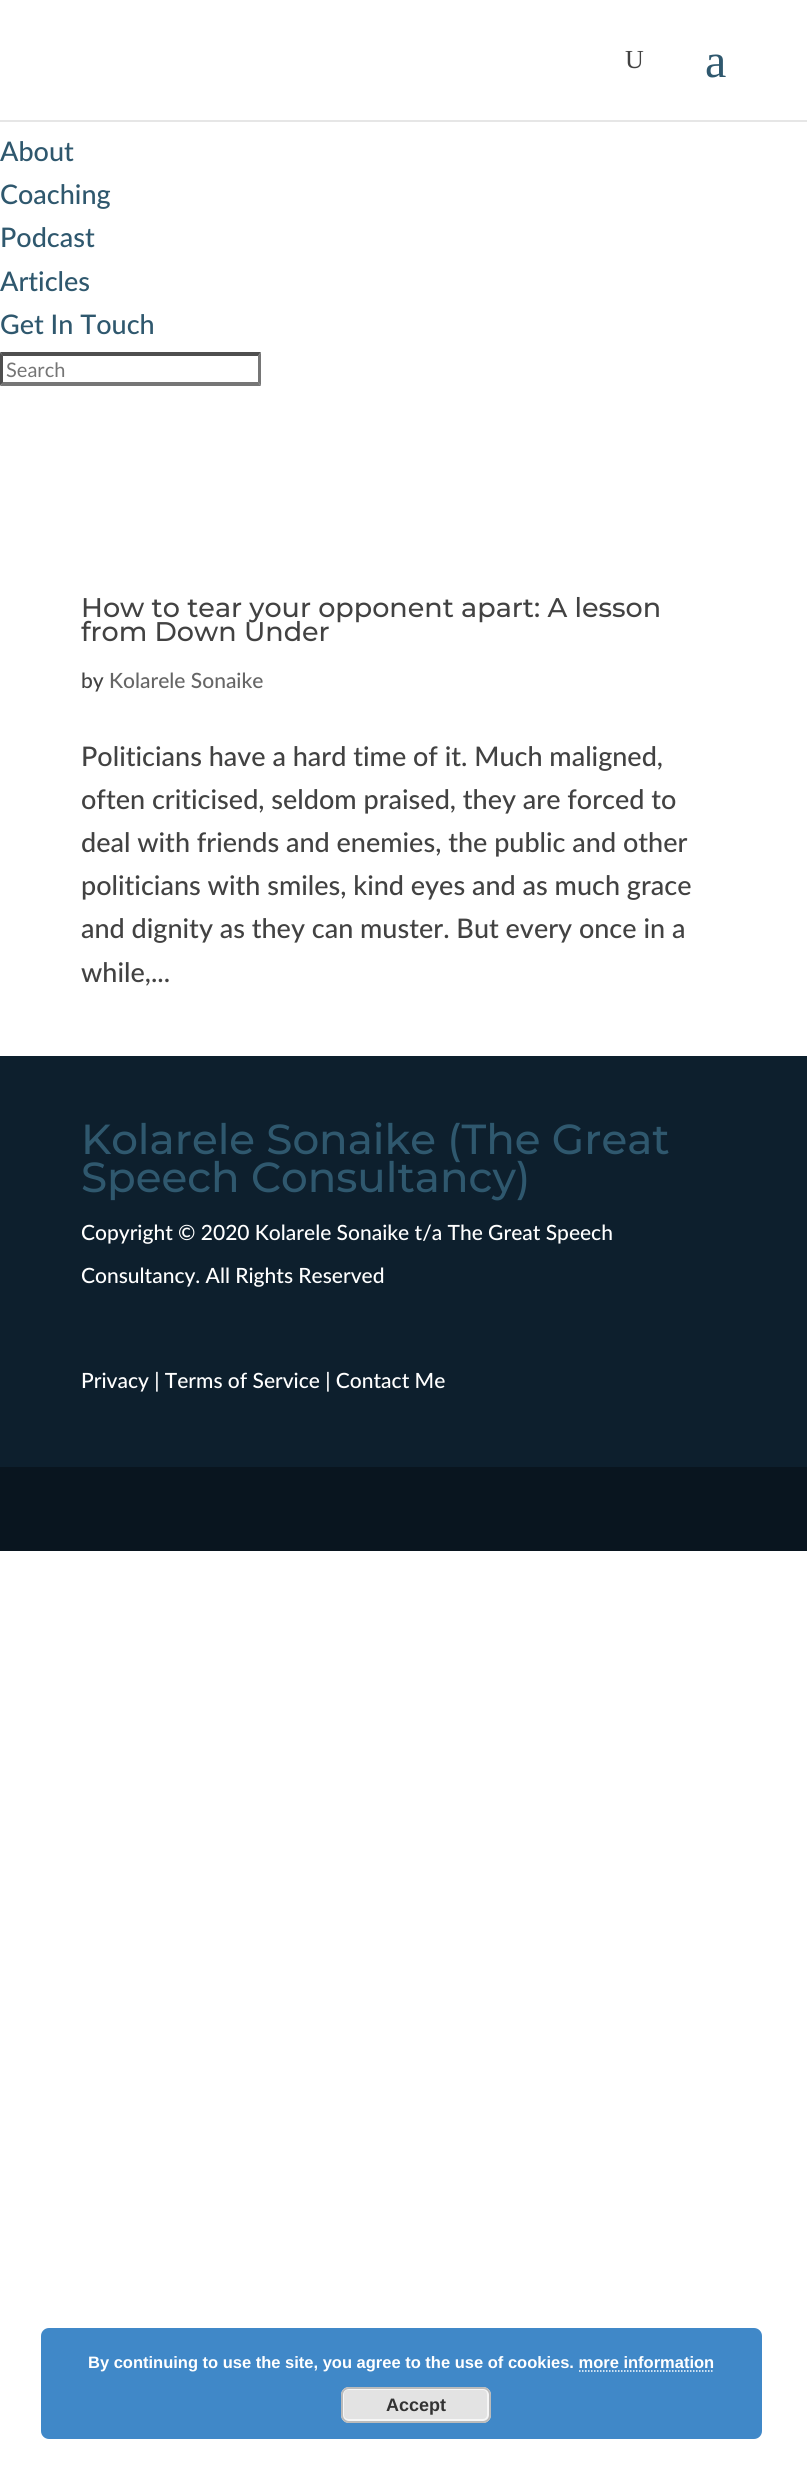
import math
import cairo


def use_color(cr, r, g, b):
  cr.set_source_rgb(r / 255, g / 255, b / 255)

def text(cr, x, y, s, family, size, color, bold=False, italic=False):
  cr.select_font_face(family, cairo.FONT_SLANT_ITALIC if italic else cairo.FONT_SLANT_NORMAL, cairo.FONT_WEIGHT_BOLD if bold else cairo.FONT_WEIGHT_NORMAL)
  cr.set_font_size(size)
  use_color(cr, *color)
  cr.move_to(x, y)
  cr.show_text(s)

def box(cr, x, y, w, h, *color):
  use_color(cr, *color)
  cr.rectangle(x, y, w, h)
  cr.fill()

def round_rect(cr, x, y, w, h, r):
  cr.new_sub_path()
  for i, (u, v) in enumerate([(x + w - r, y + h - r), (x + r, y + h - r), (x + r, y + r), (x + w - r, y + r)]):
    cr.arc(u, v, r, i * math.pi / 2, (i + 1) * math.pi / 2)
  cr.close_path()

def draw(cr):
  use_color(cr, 255, 255, 255)
  cr.paint()
  use_color(cr, 79, 79, 79)
  cr.new_path()
  cr.move_to(0, 352)
  cr.line_to(261, 352)
  cr.line_to(258, 356)
  cr.line_to(3, 356)
  cr.close_path()
  cr.fill()
  use_color(cr, 118, 118, 118)
  cr.new_path()
  cr.move_to(261, 352.5)
  cr.line_to(261, 385.5)
  cr.line_to(258, 382.5)
  cr.line_to(258, 355.5)
  cr.close_path()
  cr.fill()
  cr.new_path()
  cr.move_to(261, 386)
  cr.line_to(0, 386)
  cr.line_to(3, 382)
  cr.line_to(258, 382)
  cr.close_path()
  cr.fill()
  use_color(cr, 79, 79, 79)
  cr.new_path()
  cr.move_to(0, 385.5)
  cr.line_to(0, 352.5)
  cr.line_to(3, 355.5)
  cr.line_to(3, 382.5)
  cr.close_path()
  cr.fill()
  box(cr, 0, 120, 807, 2, 230, 230, 230)
  box(cr, 0, 1056, 807, 411, 13, 31, 45)
  box(cr, 0, 1467, 807, 84, 9, 21, 31)
  use_color(cr, 64, 136, 200)
  round_rect(cr, 41, 2328, 721, 111, 8)
  cr.fill()
  cr.new_path()
  cr.move_to(579, 2371)
  cr.line_to(714, 2371)
  use_color(cr, 255, 255, 255)
  cr.set_line_width(1.5)
  cr.set_dash([1.5, 1.5])
  cr.stroke()
  use_color(cr, 227, 227, 227)
  round_rect(cr, 341, 2387, 150, 36, 8)
  cr.fill()
  round_rect(cr, 343, 2389, 145, 31, 5)
  use_color(cr, 246, 246, 246)
  cr.set_line_width(2)
  cr.set_dash([])
  cr.stroke()
  round_rect(cr, 342, 2388, 148, 34, 7)
  use_color(cr, 187, 187, 187)
  cr.stroke()
  text(cr, 0, 161, "About", "Lato Medium", 27, (47, 88, 110))
  text(cr, 0, 204, "Coaching", "Lato Medium", 27, (47, 88, 110))
  text(cr, 0, 247, "Podcast", "Lato Medium", 27, (47, 88, 110))
  text(cr, 0, 291, "Articles", "Lato Medium", 27, (47, 88, 110))
  text(cr, 0, 334, "Get In Touch", "Lato Medium", 27, (47, 88, 110))
  text(cr, 6, 377, "Search", "Lato", 20, (117, 117, 117))
  text(cr, 625, 68, "U", "Liberation Serif", 26, (66, 66, 66))
  text(cr, 705, 77, "a", "Liberation Serif", 48, (47, 88, 110))
  text(cr, 81, 617, "How to tear your opponent apart: A lesson", "Montserrat Medium", 27, (66, 66, 66))
  text(cr, 81, 641, "from Down Under", "Montserrat Medium", 27, (66, 66, 66))
  text(cr, 81, 688, "by", "Lato Medium", 21, (66, 66, 66))
  text(cr, 109, 688, "Kolarele Sonaike", "Lato Medium", 21, (102, 102, 102))
  text(cr, 81, 766, "Politicians have a hard time of it. Much maligned,", "Lato Medium", 27, (66, 66, 66))
  text(cr, 81, 809, "often criticised, seldom praised, they are forced to", "Lato Medium", 27, (66, 66, 66))
  text(cr, 81, 852, "deal with friends and enemies, the public and other", "Lato Medium", 27, (66, 66, 66))
  text(cr, 81, 895, "politicians with smiles, kind eyes and as much grace", "Lato Medium", 27, (66, 66, 66))
  text(cr, 81, 938, "and dignity as they can muster. But every once in a", "Lato Medium", 27, (66, 66, 66))
  text(cr, 81, 982, "while,...", "Lato Medium", 27, (66, 66, 66))
  text(cr, 81, 1154, "Kolarele Sonaike (The Great", "Montserrat Medium", 42, (47, 88, 110))
  text(cr, 81, 1192, "Speech Consultancy)", "Montserrat Medium", 42, (47, 88, 110))
  text(cr, 81, 1240, "Copyright © 2020 Kolarele Sonaike t/a The Great Speech", "Lato Medium", 21, (255, 255, 255))
  text(cr, 81, 1283, "Consultancy. All Rights Reserved", "Lato Medium", 21, (255, 255, 255))
  text(cr, 81, 1388, "Privacy | Terms of Service | Contact Me", "Lato Medium", 21, (255, 255, 255))
  text(cr, 88, 2368, "By continuing to use the site, you agree to the use of cookies. more information", "Liberation Sans", 16.5, (255, 255, 255), bold=True)
  text(cr, 386, 2411, "Accept", "Liberation Sans", 18, (51, 51, 51), bold=True)


surface = cairo.ImageSurface(cairo.FORMAT_RGB24, 807, 2484)
cr = cairo.Context(surface)
options = cairo.FontOptions()
options.set_hint_metrics(cairo.HINT_METRICS_OFF)
options.set_hint_style(cairo.HINT_STYLE_NONE)
cr.set_font_options(options)
cr.set_miter_limit(4)
draw(cr)
surface.write_to_png("out.png")
